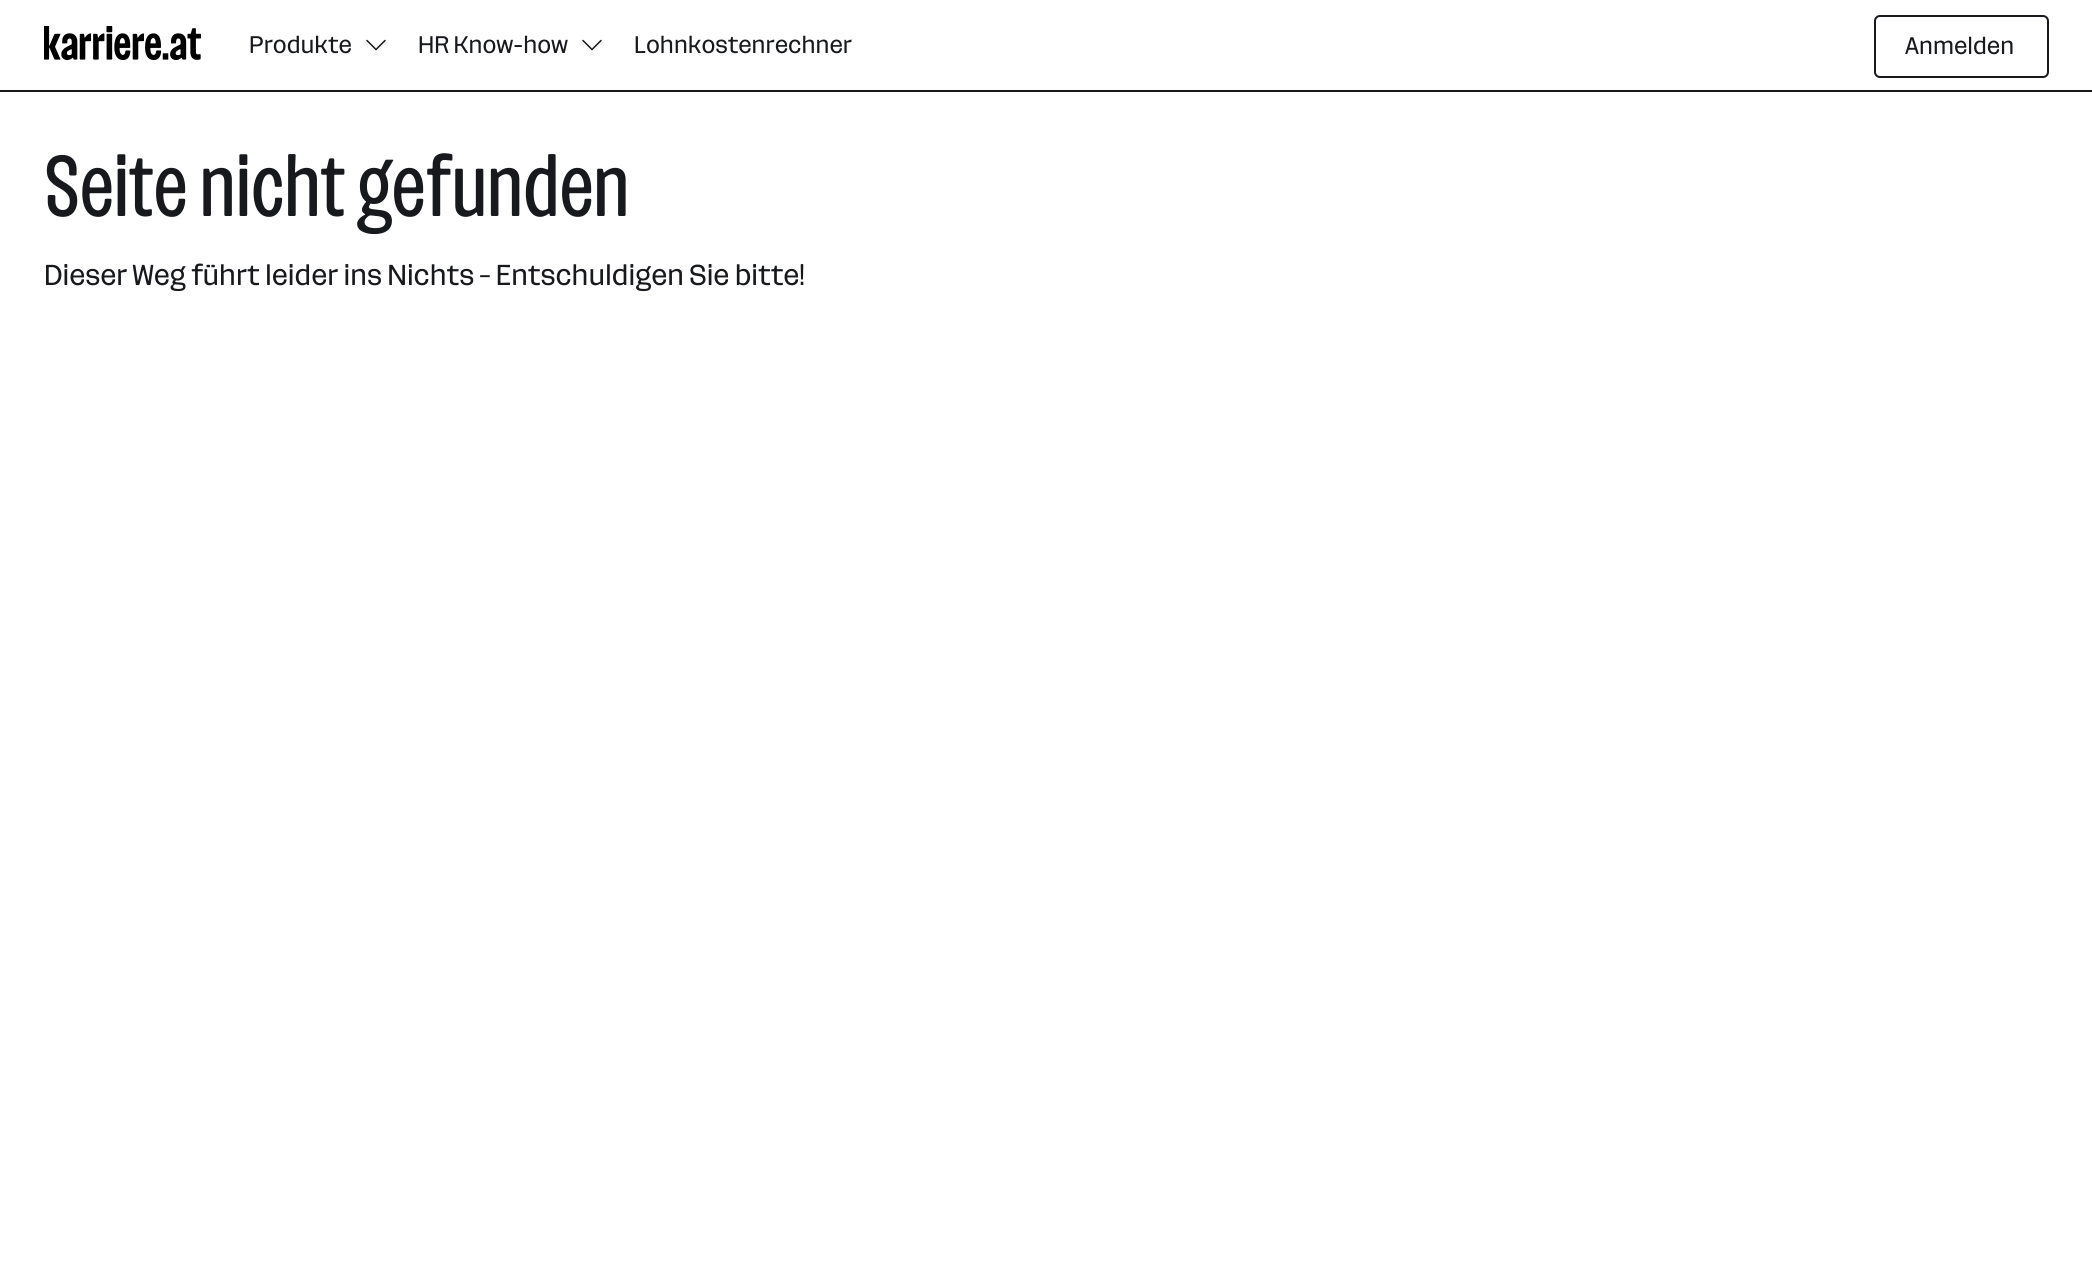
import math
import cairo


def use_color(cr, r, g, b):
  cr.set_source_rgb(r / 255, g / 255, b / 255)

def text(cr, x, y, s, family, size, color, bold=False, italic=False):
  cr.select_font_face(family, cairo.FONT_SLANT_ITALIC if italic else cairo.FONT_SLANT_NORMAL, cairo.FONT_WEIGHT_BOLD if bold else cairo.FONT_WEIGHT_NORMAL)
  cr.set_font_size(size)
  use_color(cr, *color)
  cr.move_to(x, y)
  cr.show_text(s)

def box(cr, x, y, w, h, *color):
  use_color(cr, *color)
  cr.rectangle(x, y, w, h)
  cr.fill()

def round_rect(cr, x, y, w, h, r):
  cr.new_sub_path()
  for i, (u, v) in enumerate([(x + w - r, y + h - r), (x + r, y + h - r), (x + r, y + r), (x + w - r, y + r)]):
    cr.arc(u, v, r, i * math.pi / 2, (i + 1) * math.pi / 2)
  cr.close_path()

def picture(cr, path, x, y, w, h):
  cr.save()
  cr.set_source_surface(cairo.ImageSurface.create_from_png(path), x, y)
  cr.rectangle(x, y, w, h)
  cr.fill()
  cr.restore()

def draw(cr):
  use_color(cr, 255, 255, 255)
  cr.paint()
  box(cr, 0, 90, 2092, 2, 23, 25, 28)
  picture(cr, "img_01.png", 44, 26, 157, 35)
  cr.new_path()
  cr.move_to(367, 40.5)
  cr.line_to(376, 49.5)
  cr.line_to(385, 40.5)
  cr.set_line_width(1.5)
  cr.set_line_cap(cairo.LINE_CAP_ROUND)
  cr.set_line_join(cairo.LINE_JOIN_ROUND)
  cr.stroke()
  cr.new_path()
  cr.move_to(583, 40.5)
  cr.line_to(592, 49.5)
  cr.line_to(601, 40.5)
  cr.stroke()
  round_rect(cr, 1875, 16, 173, 61, 5)
  cr.set_line_width(2)
  cr.set_line_cap(cairo.LINE_CAP_BUTT)
  cr.set_line_join(cairo.LINE_JOIN_MITER)
  cr.stroke()
  text(cr, 249, 53, "Produkte", "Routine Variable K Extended", 24, (23, 25, 28))
  text(cr, 418, 53, "HR Know-how", "Routine Variable K Extended", 24, (23, 25, 28))
  text(cr, 634, 53, "Lohnkostenrechner", "Routine Variable K Extended", 24, (23, 25, 28))
  text(cr, 1905, 54, "Anmelden", "Routine Variable K Extended", 24, (23, 25, 28))
  text(cr, 44, 216, "Seite nicht gefunden", "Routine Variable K", 86, (23, 25, 28))
  text(cr, 44, 285, "Dieser Weg führt leider ins Nichts – Entschuldigen Sie bitte!", "Routine Variable K Extended", 28.8, (23, 25, 28))


surface = cairo.ImageSurface(cairo.FORMAT_RGB24, 2092, 1284)
cr = cairo.Context(surface)
options = cairo.FontOptions()
options.set_hint_metrics(cairo.HINT_METRICS_OFF)
options.set_hint_style(cairo.HINT_STYLE_NONE)
cr.set_font_options(options)
cr.set_miter_limit(4)
draw(cr)
surface.write_to_png("out.png")
